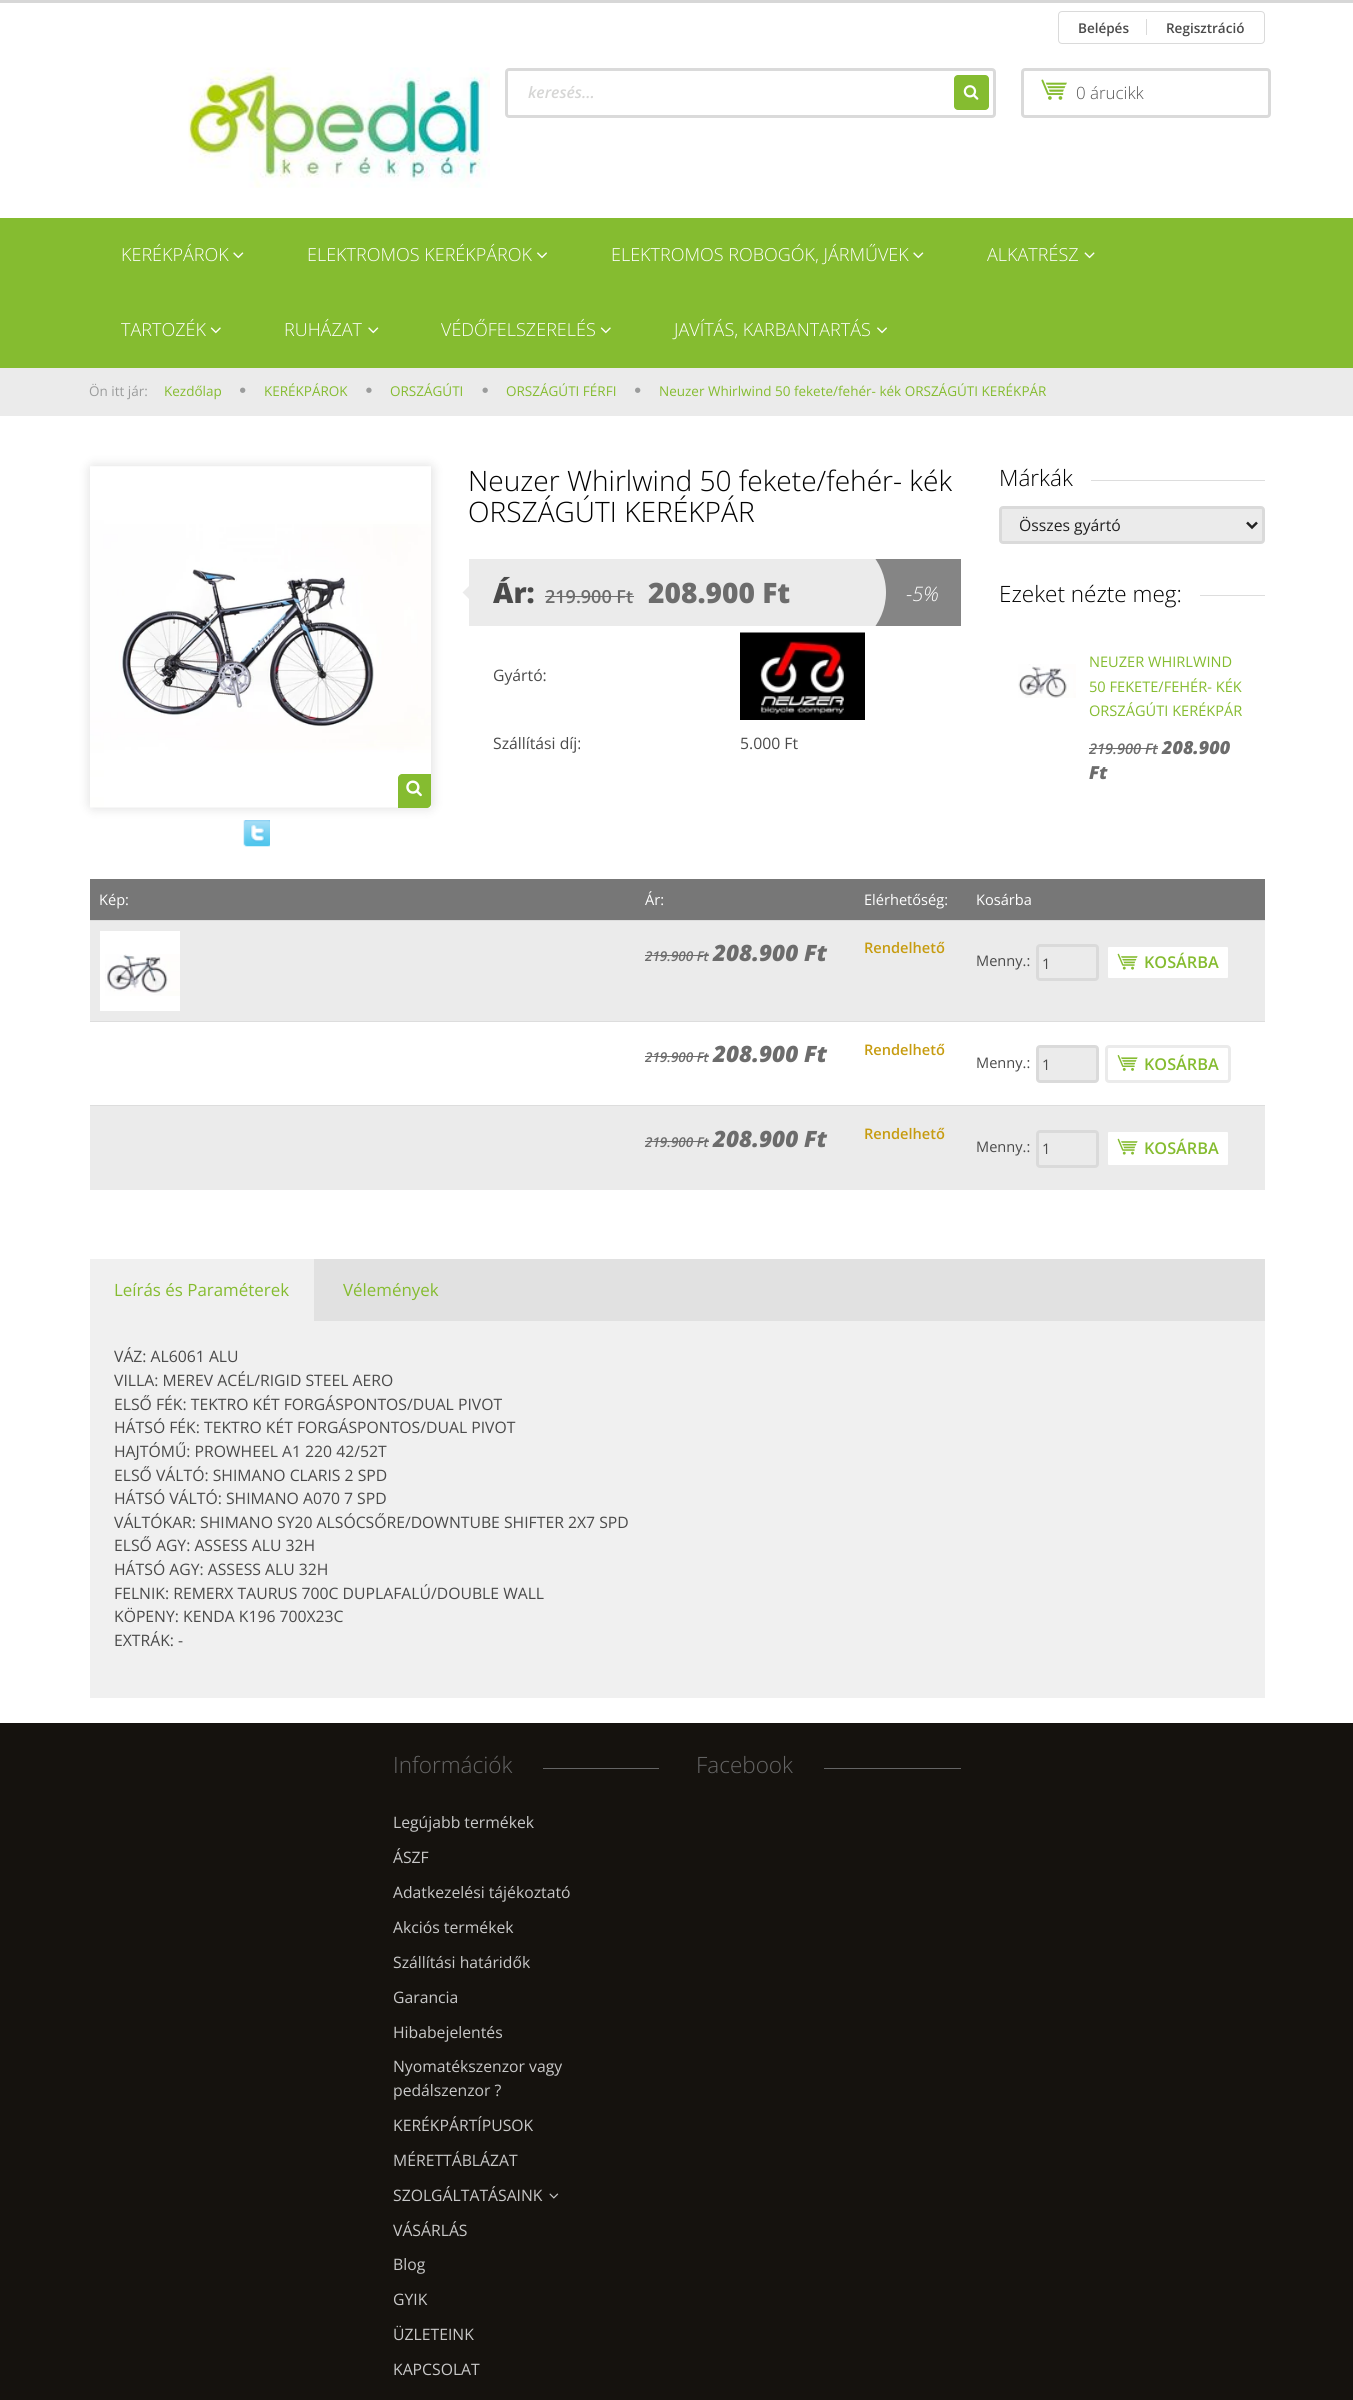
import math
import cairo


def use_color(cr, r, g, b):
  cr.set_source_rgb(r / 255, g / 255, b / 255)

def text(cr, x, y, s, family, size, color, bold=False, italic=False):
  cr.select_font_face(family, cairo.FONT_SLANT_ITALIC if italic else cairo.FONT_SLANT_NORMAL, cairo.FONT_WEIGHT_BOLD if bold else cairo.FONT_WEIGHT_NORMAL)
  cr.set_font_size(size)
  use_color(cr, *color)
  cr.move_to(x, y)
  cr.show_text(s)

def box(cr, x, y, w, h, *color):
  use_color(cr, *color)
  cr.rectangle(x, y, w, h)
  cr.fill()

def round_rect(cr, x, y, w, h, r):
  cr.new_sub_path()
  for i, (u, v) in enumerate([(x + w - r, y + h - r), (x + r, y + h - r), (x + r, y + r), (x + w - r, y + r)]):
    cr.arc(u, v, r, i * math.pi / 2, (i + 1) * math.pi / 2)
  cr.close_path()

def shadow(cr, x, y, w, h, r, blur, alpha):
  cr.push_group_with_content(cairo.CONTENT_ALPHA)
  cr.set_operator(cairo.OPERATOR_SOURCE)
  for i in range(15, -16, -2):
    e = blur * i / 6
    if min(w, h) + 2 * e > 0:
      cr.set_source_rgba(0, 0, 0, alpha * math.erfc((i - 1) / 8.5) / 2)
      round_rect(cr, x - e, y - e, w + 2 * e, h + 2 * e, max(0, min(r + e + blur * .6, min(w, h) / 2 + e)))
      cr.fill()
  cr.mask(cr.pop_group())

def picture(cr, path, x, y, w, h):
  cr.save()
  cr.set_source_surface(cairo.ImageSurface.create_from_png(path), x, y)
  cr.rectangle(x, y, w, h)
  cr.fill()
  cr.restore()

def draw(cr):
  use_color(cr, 255, 255, 255)
  cr.paint()
  box(cr, 0, 0, 1353, 3, 215, 215, 215)
  round_rect(cr, 1058.5, 11.5, 206, 32, 3.5)
  use_color(cr, 218, 218, 218)
  cr.set_line_width(1)
  cr.stroke()
  box(cr, 1146, 19, 1, 16, 218, 218, 218)
  picture(cr, "img_01.png", 188, 67, 302, 121)
  round_rect(cr, 506.5, 69.5, 488, 47, 2.5)
  cr.set_line_width(3)
  cr.stroke()
  use_color(cr, 133, 188, 48)
  round_rect(cr, 954, 75, 35, 35, 4)
  cr.fill()
  picture(cr, "img_02.png", 963, 85, 16, 15)
  round_rect(cr, 1022.5, 69.5, 247, 47, 2.5)
  use_color(cr, 218, 218, 218)
  cr.stroke()
  picture(cr, "img_03.png", 1041, 79, 26, 21)
  box(cr, 0, 218, 1353, 150, 133, 188, 48)
  picture(cr, "img_04.png", 233, 252, 11, 7)
  picture(cr, "img_05.png", 537, 252, 10, 7)
  picture(cr, "img_04.png", 913, 252, 11, 7)
  picture(cr, "img_06.png", 1084, 252, 11, 7)
  picture(cr, "img_07.png", 210, 327, 11, 7)
  picture(cr, "img_04.png", 368, 327, 11, 7)
  picture(cr, "img_07.png", 600, 327, 11, 7)
  picture(cr, "img_05.png", 877, 327, 10, 7)
  box(cr, 0, 368, 1353, 48, 235, 235, 235)
  picture(cr, "img_08.png", 240, 387, 6, 6)
  picture(cr, "img_09.png", 366, 387, 6, 6)
  picture(cr, "img_10.png", 482, 387, 6, 6)
  picture(cr, "img_08.png", 635, 387, 6, 6)
  use_color(cr, 0, 0, 0)
  shadow(cr, 88, 464, 346, 346, 6, 5, 0.1)
  picture(cr, "img_11.png", 90, 466, 341, 342)
  use_color(cr, 133, 188, 48)
  cr.new_path()
  cr.move_to(402, 774)
  cr.line_to(431, 774)
  cr.line_to(431, 804)
  cr.curve_to(431, 806, 429, 808, 427, 808)
  cr.line_to(398, 808)
  cr.line_to(398, 778)
  cr.curve_to(398, 776, 400, 774, 402, 774)
  cr.close_path()
  cr.fill()
  picture(cr, "img_12.png", 406, 780, 16, 17)
  picture(cr, "img_13.png", 243, 820, 27, 27)
  box(cr, 469, 559, 405, 67, 235, 235, 235)
  cr.new_path()
  cr.move_to(469, 586)
  cr.line_to(469, 599)
  cr.line_to(462.5, 592.5)
  cr.close_path()
  cr.fill()
  box(cr, 545, 596, 89, 1, 108, 108, 108)
  box(cr, 875, 559, 86, 67, 133, 133, 133)
  picture(cr, "img_14.png", 740, 632, 125, 88)
  box(cr, 1091, 480, 174, 1, 221, 221, 221)
  use_color(cr, 235, 235, 235)
  round_rect(cr, 1000.5, 507.5, 263, 35, 2.5)
  cr.fill_preserve()
  use_color(cr, 218, 218, 218)
  cr.stroke()
  cr.new_path()
  cr.move_to(1247, 522.5)
  cr.line_to(1252, 527.5)
  cr.line_to(1257, 522.5)
  use_color(cr, 34, 34, 34)
  cr.set_line_width(2.5)
  cr.stroke()
  box(cr, 1200, 595, 65, 1, 221, 221, 221)
  picture(cr, "img_15.png", 1018, 664, 58, 34)
  box(cr, 1089, 748, 69, 1, 108, 108, 108)
  box(cr, 90, 879, 1175, 41, 119, 119, 119)
  box(cr, 90, 921, 1175, 100, 235, 235, 235)
  box(cr, 100, 931, 80, 80, 255, 255, 255)
  picture(cr, "img_16.png", 105, 954, 75, 42)
  box(cr, 645, 955, 64, 1, 108, 108, 108)
  box(cr, 90, 920, 1175, 1, 221, 221, 221)
  round_rect(cr, 1037.5, 945.5, 60, 34, 2.5)
  use_color(cr, 218, 218, 218)
  cr.set_line_width(3)
  cr.stroke()
  use_color(cr, 255, 255, 255)
  round_rect(cr, 1106.5, 945.5, 123, 34, 2.5)
  cr.fill_preserve()
  use_color(cr, 235, 235, 235)
  cr.stroke()
  picture(cr, "img_17.png", 1117, 953, 21, 17)
  box(cr, 645, 1056, 64, 1, 108, 108, 108)
  box(cr, 90, 1021, 1175, 1, 221, 221, 221)
  use_color(cr, 235, 235, 235)
  round_rect(cr, 1037.5, 1046.5, 60, 35, 2.5)
  cr.fill_preserve()
  use_color(cr, 218, 218, 218)
  cr.stroke()
  round_rect(cr, 1106.5, 1046.5, 123, 35, 2.5)
  use_color(cr, 235, 235, 235)
  cr.stroke()
  picture(cr, "img_18.png", 1117, 1055, 21, 16)
  box(cr, 90, 1106, 1175, 84, 235, 235, 235)
  box(cr, 645, 1141, 64, 1, 108, 108, 108)
  box(cr, 90, 1105, 1175, 1, 221, 221, 221)
  round_rect(cr, 1037.5, 1131.5, 60, 35, 2.5)
  use_color(cr, 218, 218, 218)
  cr.stroke()
  use_color(cr, 255, 255, 255)
  round_rect(cr, 1106.5, 1130.5, 123, 36, 2.5)
  cr.fill_preserve()
  use_color(cr, 235, 235, 235)
  cr.stroke()
  picture(cr, "img_17.png", 1117, 1138, 21, 17)
  box(cr, 314, 1259, 951, 62, 225, 225, 225)
  box(cr, 90, 1259, 224, 62, 240, 240, 240)
  box(cr, 90, 1321, 1175, 377, 240, 240, 240)
  box(cr, 0, 1723, 1353, 677, 21, 18, 14)
  box(cr, 543, 1768, 116, 1, 101, 101, 101)
  picture(cr, "img_19.png", 549, 2193, 10, 6)
  box(cr, 824, 1768, 137, 1, 101, 101, 101)
  text(cr, 1078, 33, "Belépés", "Open Sans SemiBold", 13.5, (74, 74, 74))
  text(cr, 1166, 33, "Regisztráció", "Open Sans SemiBold", 13.5, (74, 74, 74))
  text(cr, 528, 98, "keresés...", "Open Sans SemiBold", 15.75, (214, 214, 213), italic=True)
  text(cr, 1076, 99, "0 árucikk", "Open Sans Light", 16.9, (85, 85, 85))
  text(cr, 121, 261, "KERÉKPÁROK", "Open Sans Light", 18, (255, 255, 255))
  text(cr, 307, 261, "ELEKTROMOS KERÉKPÁROK", "Open Sans Light", 18, (255, 255, 255))
  text(cr, 611, 261, "ELEKTROMOS ROBOGÓK, JÁRMŰVEK", "Open Sans Light", 18, (255, 255, 255))
  text(cr, 987, 261, "ALKATRÉSZ", "Open Sans Light", 18, (255, 255, 255))
  text(cr, 121, 336, "TARTOZÉK", "Open Sans Light", 18, (255, 255, 255))
  text(cr, 284, 336, "RUHÁZAT", "Open Sans Light", 18, (255, 255, 255))
  text(cr, 441, 336, "VÉDŐFELSZERELÉS", "Open Sans Light", 18, (255, 255, 255))
  text(cr, 674, 336, "JAVÍTÁS, KARBANTARTÁS", "Open Sans Light", 18, (255, 255, 255))
  text(cr, 89, 396, "Ön itt jár:", "Open Sans", 13.5, (155, 156, 156))
  text(cr, 164, 396, "Kezdőlap", "Open Sans", 13.5, (133, 188, 48))
  text(cr, 264, 396, "KERÉKPÁROK", "Open Sans", 13.5, (133, 188, 48))
  text(cr, 390, 396, "ORSZÁGÚTI", "Open Sans", 13.5, (133, 188, 48))
  text(cr, 506, 396, "ORSZÁGÚTI FÉRFI", "Open Sans", 13.5, (133, 188, 48))
  text(cr, 659, 396, "Neuzer Whirlwind 50 fekete/fehér- kék ORSZÁGÚTI KERÉKPÁR", "Open Sans", 13.5, (133, 188, 48))
  text(cr, 468, 491, "Neuzer Whirlwind 50 fekete/fehér- kék", "Open Sans Light", 28.1, (0, 0, 0))
  text(cr, 468, 522, "ORSZÁGÚTI KERÉKPÁR", "Open Sans Light", 28.1, (0, 0, 0))
  text(cr, 493, 603, "Ár:", "Open Sans ExtraBold", 28.1, (74, 74, 74))
  text(cr, 545, 603, "219.900 Ft", "Open Sans SemiBold", 18, (108, 108, 108))
  text(cr, 648, 603, "208.900 Ft", "Open Sans ExtraBold", 28.1, (108, 108, 108))
  cr.save()
  cr.rectangle(874, 559, 87, 67)
  cr.clip()
  use_color(cr, 235, 235, 235)
  cr.arc(827.5, 592.5, 58.5, 0, 2 * math.pi)
  cr.fill()
  cr.restore()
  text(cr, 906, 601, "-5%", "Open Sans Light", 20, (255, 255, 255), italic=True)
  text(cr, 493, 681, "Gyártó:", "Open Sans", 15.75, (74, 74, 74))
  text(cr, 493, 749, "Szállítási díj:", "Open Sans", 15.75, (74, 74, 74))
  text(cr, 740, 749, "5.000 Ft", "Open Sans", 15.75, (74, 74, 74))
  text(cr, 999, 486, "Márkák", "Open Sans Light", 22.5, (0, 0, 0))
  text(cr, 1019, 531, "Összes gyártó", "Open Sans", 15.75, (34, 34, 34))
  text(cr, 999, 602, "Ezeket nézte meg:", "Open Sans Light", 22.5, (0, 0, 0))
  text(cr, 1089, 667, "NEUZER WHIRLWIND", "Open Sans", 14.6, (133, 188, 48))
  text(cr, 1089, 692, "50 FEKETE/FEHÉR- KÉK", "Open Sans", 14.6, (133, 188, 48))
  text(cr, 1089, 716, "ORSZÁGÚTI KERÉKPÁR", "Open Sans", 14.6, (133, 188, 48))
  text(cr, 1089, 754, "219.900 Ft", "Open Sans SemiBold", 14.6, (108, 108, 108), italic=True)
  text(cr, 1162, 754, "208.900", "Open Sans ExtraBold", 18, (108, 108, 108), italic=True)
  text(cr, 1089, 779, "Ft", "Open Sans ExtraBold", 18, (108, 108, 108), italic=True)
  text(cr, 99, 905, "Kép:", "Open Sans", 14.6, (255, 255, 255))
  text(cr, 645, 905, "Ár:", "Open Sans", 14.6, (255, 255, 255))
  text(cr, 864, 905, "Elérhetőség:", "Open Sans", 14.6, (255, 255, 255))
  text(cr, 976, 905, "Kosárba", "Open Sans", 14.6, (255, 255, 255))
  text(cr, 645, 961, "219.900 Ft", "Open Sans SemiBold", 13.5, (108, 108, 108), italic=True)
  text(cr, 713, 961, "208.900 Ft", "Open Sans ExtraBold", 22.5, (108, 108, 108), italic=True)
  text(cr, 864, 953, "Rendelhető", "Open Sans SemiBold", 14.6, (199, 156, 16))
  text(cr, 976, 966, "Menny.:", "Open Sans", 14.6, (74, 74, 74))
  text(cr, 1042, 969, "1", "Open Sans", 14.6, (74, 74, 74))
  text(cr, 1144, 968, "KOSÁRBA", "Open Sans SemiBold", 16.25, (133, 188, 48))
  text(cr, 645, 1062, "219.900 Ft", "Open Sans SemiBold", 13.5, (108, 108, 108), italic=True)
  text(cr, 713, 1062, "208.900 Ft", "Open Sans ExtraBold", 22.5, (108, 108, 108), italic=True)
  text(cr, 864, 1055, "Rendelhető", "Open Sans SemiBold", 14.6, (199, 156, 16))
  text(cr, 976, 1068, "Menny.:", "Open Sans", 14.6, (74, 74, 74))
  text(cr, 1042, 1070, "1", "Open Sans", 14.6, (74, 74, 74))
  text(cr, 1144, 1070, "KOSÁRBA", "Open Sans SemiBold", 16.25, (133, 188, 48))
  text(cr, 645, 1147, "219.900 Ft", "Open Sans SemiBold", 13.5, (108, 108, 108), italic=True)
  text(cr, 713, 1147, "208.900 Ft", "Open Sans ExtraBold", 22.5, (108, 108, 108), italic=True)
  text(cr, 864, 1139, "Rendelhető", "Open Sans SemiBold", 14.6, (199, 156, 16))
  text(cr, 976, 1152, "Menny.:", "Open Sans", 14.6, (74, 74, 74))
  text(cr, 1042, 1154, "1", "Open Sans", 14.6, (74, 74, 74))
  text(cr, 1144, 1154, "KOSÁRBA", "Open Sans SemiBold", 16.25, (133, 188, 48))
  text(cr, 114, 1296, "Leírás és Paraméterek", "Open Sans", 16.9, (133, 188, 48))
  text(cr, 343, 1296, "Vélemények", "Open Sans", 16.9, (133, 188, 48))
  text(cr, 114, 1362, "VÁZ: AL6061 ALU", "Open Sans", 15.75, (74, 74, 74))
  text(cr, 114, 1386, "VILLA: MEREV ACÉL/RIGID STEEL AERO", "Open Sans", 15.75, (74, 74, 74))
  text(cr, 114, 1410, "ELSŐ FÉK: TEKTRO KÉT FORGÁSPONTOS/DUAL PIVOT", "Open Sans", 15.75, (74, 74, 74))
  text(cr, 114, 1433, "HÁTSÓ FÉK: TEKTRO KÉT FORGÁSPONTOS/DUAL PIVOT", "Open Sans", 15.75, (74, 74, 74))
  text(cr, 114, 1457, "HAJTÓMŰ: PROWHEEL A1 220 42/52T", "Open Sans", 15.75, (74, 74, 74))
  text(cr, 114, 1481, "ELSŐ VÁLTÓ: SHIMANO CLARIS 2 SPD", "Open Sans", 15.75, (74, 74, 74))
  text(cr, 114, 1504, "HÁTSÓ VÁLTÓ: SHIMANO A070 7 SPD", "Open Sans", 15.75, (74, 74, 74))
  text(cr, 114, 1528, "VÁLTÓKAR: SHIMANO SY20 ALSÓCSŐRE/DOWNTUBE SHIFTER 2X7 SPD", "Open Sans", 15.75, (74, 74, 74))
  text(cr, 114, 1551, "ELSŐ AGY: ASSESS ALU 32H", "Open Sans", 15.75, (74, 74, 74))
  text(cr, 114, 1575, "HÁTSÓ AGY: ASSESS ALU 32H", "Open Sans", 15.75, (74, 74, 74))
  text(cr, 114, 1599, "FELNIK: REMERX TAURUS 700C DUPLAFALÚ/DOUBLE WALL", "Open Sans", 15.75, (74, 74, 74))
  text(cr, 114, 1622, "KÖPENY: KENDA K196 700X23C", "Open Sans", 15.75, (74, 74, 74))
  text(cr, 114, 1646, "EXTRÁK: -", "Open Sans", 15.75, (74, 74, 74))
  text(cr, 393, 1773, "Információk", "Open Sans Light", 22.5, (101, 101, 101))
  text(cr, 393, 1828, "Legújabb termékek", "Open Sans", 15.75, (200, 200, 200))
  text(cr, 393, 1863, "ÁSZF", "Open Sans", 15.75, (200, 200, 200))
  text(cr, 393, 1898, "Adatkezelési tájékoztató", "Open Sans", 15.75, (200, 200, 200))
  text(cr, 393, 1933, "Akciós termékek", "Open Sans", 15.75, (200, 200, 200))
  text(cr, 393, 1968, "Szállítási határidők", "Open Sans", 15.75, (200, 200, 200))
  text(cr, 393, 2003, "Garancia", "Open Sans", 15.75, (200, 200, 200))
  text(cr, 393, 2038, "Hibabejelentés", "Open Sans", 15.75, (200, 200, 200))
  text(cr, 393, 2072, "Nyomatékszenzor vagy", "Open Sans", 15.75, (200, 200, 200))
  text(cr, 393, 2096, "pedálszenzor ?", "Open Sans", 15.75, (200, 200, 200))
  text(cr, 393, 2131, "KERÉKPÁRTÍPUSOK", "Open Sans", 15.75, (200, 200, 200))
  text(cr, 393, 2166, "MÉRETTÁBLÁZAT", "Open Sans", 15.75, (200, 200, 200))
  text(cr, 393, 2201, "SZOLGÁLTATÁSAINK", "Open Sans", 15.75, (200, 200, 200))
  text(cr, 393, 2236, "VÁSÁRLÁS", "Open Sans", 15.75, (200, 200, 200))
  text(cr, 393, 2270, "Blog", "Open Sans", 15.75, (200, 200, 200))
  text(cr, 393, 2305, "GYIK", "Open Sans", 15.75, (200, 200, 200))
  text(cr, 393, 2340, "ÜZLETEINK", "Open Sans", 15.75, (200, 200, 200))
  text(cr, 393, 2375, "KAPCSOLAT", "Open Sans", 15.75, (200, 200, 200))
  text(cr, 696, 1773, "Facebook", "Open Sans Light", 22.5, (101, 101, 101))


surface = cairo.ImageSurface(cairo.FORMAT_RGB24, 1353, 2400)
cr = cairo.Context(surface)
options = cairo.FontOptions()
options.set_hint_metrics(cairo.HINT_METRICS_OFF)
options.set_hint_style(cairo.HINT_STYLE_NONE)
cr.set_font_options(options)
cr.set_miter_limit(4)
draw(cr)
surface.write_to_png("out.png")
